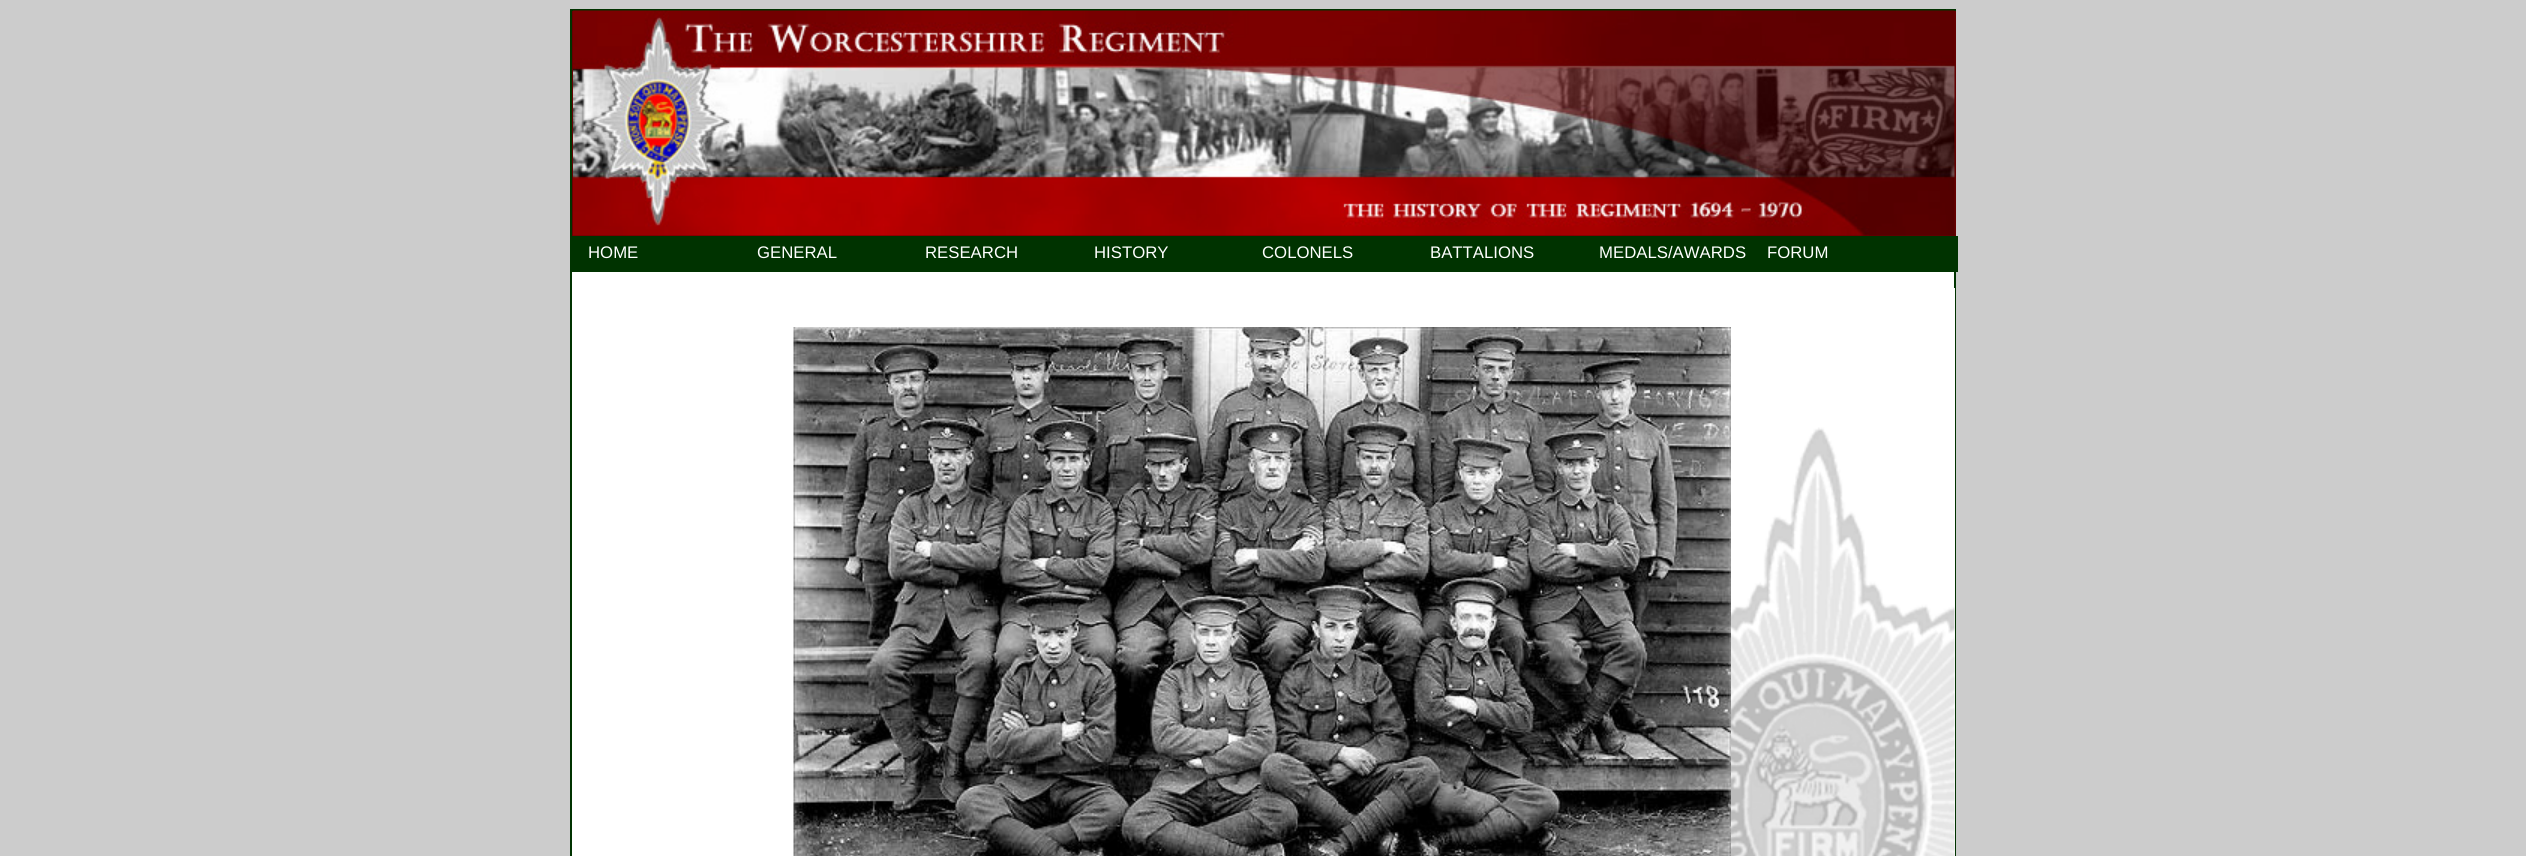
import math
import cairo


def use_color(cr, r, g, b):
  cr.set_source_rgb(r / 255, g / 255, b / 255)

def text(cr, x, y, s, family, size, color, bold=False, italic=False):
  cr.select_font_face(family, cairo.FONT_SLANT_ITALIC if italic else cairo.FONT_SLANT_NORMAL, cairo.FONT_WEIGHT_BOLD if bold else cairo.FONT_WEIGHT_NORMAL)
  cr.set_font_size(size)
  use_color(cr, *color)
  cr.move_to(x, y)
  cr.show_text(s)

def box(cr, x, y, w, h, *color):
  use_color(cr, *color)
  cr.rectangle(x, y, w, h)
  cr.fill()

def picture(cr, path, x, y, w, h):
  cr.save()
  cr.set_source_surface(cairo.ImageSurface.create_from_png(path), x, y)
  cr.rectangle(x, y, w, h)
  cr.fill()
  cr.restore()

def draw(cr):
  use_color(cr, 204, 204, 204)
  cr.paint()
  box(cr, 572, 272, 1382, 16, 255, 255, 255)
  cr.rectangle(571, 10, 1384, 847)
  use_color(cr, 0, 51, 0)
  cr.stroke()
  box(cr, 572, 11, 1384, 225, 102, 0, 0)
  picture(cr, "img_01.png", 573, 10, 1382, 226)
  box(cr, 572, 236, 1386, 36, 0, 51, 0)
  box(cr, 572, 288, 1383, 568, 255, 255, 255)
  picture(cr, "img_02.png", 1731, 427, 224, 429)
  picture(cr, "img_03.png", 793, 327, 938, 529)
  text(cr, 588, 258, "HOME", "Liberation Sans", 16.75, (255, 255, 255))
  text(cr, 757, 258, "GENERAL", "Liberation Sans", 16.75, (255, 255, 255))
  text(cr, 925, 258, "RESEARCH", "Liberation Sans", 16.75, (255, 255, 255))
  text(cr, 1094, 258, "HISTORY", "Liberation Sans", 16.75, (255, 255, 255))
  text(cr, 1262, 258, "COLONELS", "Liberation Sans", 16.75, (255, 255, 255))
  text(cr, 1430, 258, "BATTALIONS", "Liberation Sans", 16.75, (255, 255, 255))
  text(cr, 1599, 258, "MEDALS/AWARDS", "Liberation Sans", 16.75, (255, 255, 255))
  text(cr, 1767, 258, "FORUM", "Liberation Sans", 16.75, (255, 255, 255))


surface = cairo.ImageSurface(cairo.FORMAT_RGB24, 2526, 856)
cr = cairo.Context(surface)
options = cairo.FontOptions()
options.set_hint_metrics(cairo.HINT_METRICS_OFF)
options.set_hint_style(cairo.HINT_STYLE_NONE)
cr.set_font_options(options)
cr.set_miter_limit(4)
draw(cr)
surface.write_to_png("out.png")
